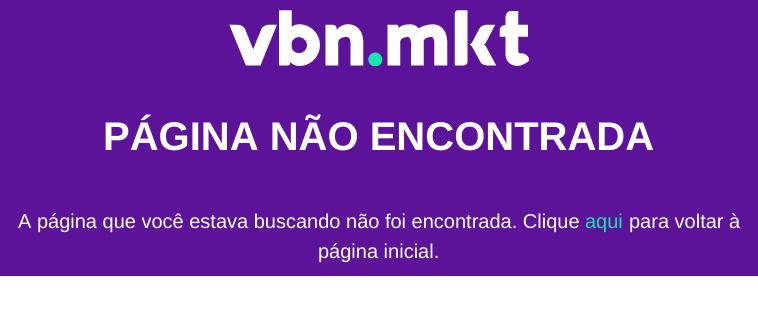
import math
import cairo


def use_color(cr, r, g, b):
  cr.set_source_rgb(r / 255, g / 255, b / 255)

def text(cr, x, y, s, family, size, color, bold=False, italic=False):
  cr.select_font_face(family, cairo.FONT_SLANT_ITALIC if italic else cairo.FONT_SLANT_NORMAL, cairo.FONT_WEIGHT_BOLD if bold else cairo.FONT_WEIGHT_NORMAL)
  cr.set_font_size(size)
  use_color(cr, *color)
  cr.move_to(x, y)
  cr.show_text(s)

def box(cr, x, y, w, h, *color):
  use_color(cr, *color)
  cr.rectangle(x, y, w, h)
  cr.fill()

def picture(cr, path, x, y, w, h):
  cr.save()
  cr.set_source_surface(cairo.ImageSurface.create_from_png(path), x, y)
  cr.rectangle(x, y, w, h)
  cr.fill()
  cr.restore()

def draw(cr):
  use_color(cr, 255, 255, 255)
  cr.paint()
  box(cr, 0, 0, 758, 276, 92, 19, 153)
  picture(cr, "img_01.png", 229, 10, 300, 56)
  text(cr, 103, 150, "PÁGINA NÃO ENCONTRADA", "Liberation Sans", 40, (255, 255, 255), bold=True)
  text(cr, 18, 228, "A página que você estava buscando não foi encontrada. Clique", "Liberation Sans", 20, (255, 255, 255))
  text(cr, 585, 228, "aqui", "Liberation Sans", 20, (26, 229, 176))
  text(cr, 629, 228, "para voltar à", "Liberation Sans", 20, (255, 255, 255))
  text(cr, 318, 258, "página inicial.", "Liberation Sans", 20, (255, 255, 255))


surface = cairo.ImageSurface(cairo.FORMAT_RGB24, 758, 327)
cr = cairo.Context(surface)
options = cairo.FontOptions()
options.set_hint_metrics(cairo.HINT_METRICS_OFF)
options.set_hint_style(cairo.HINT_STYLE_NONE)
cr.set_font_options(options)
cr.set_miter_limit(4)
draw(cr)
surface.write_to_png("out.png")
